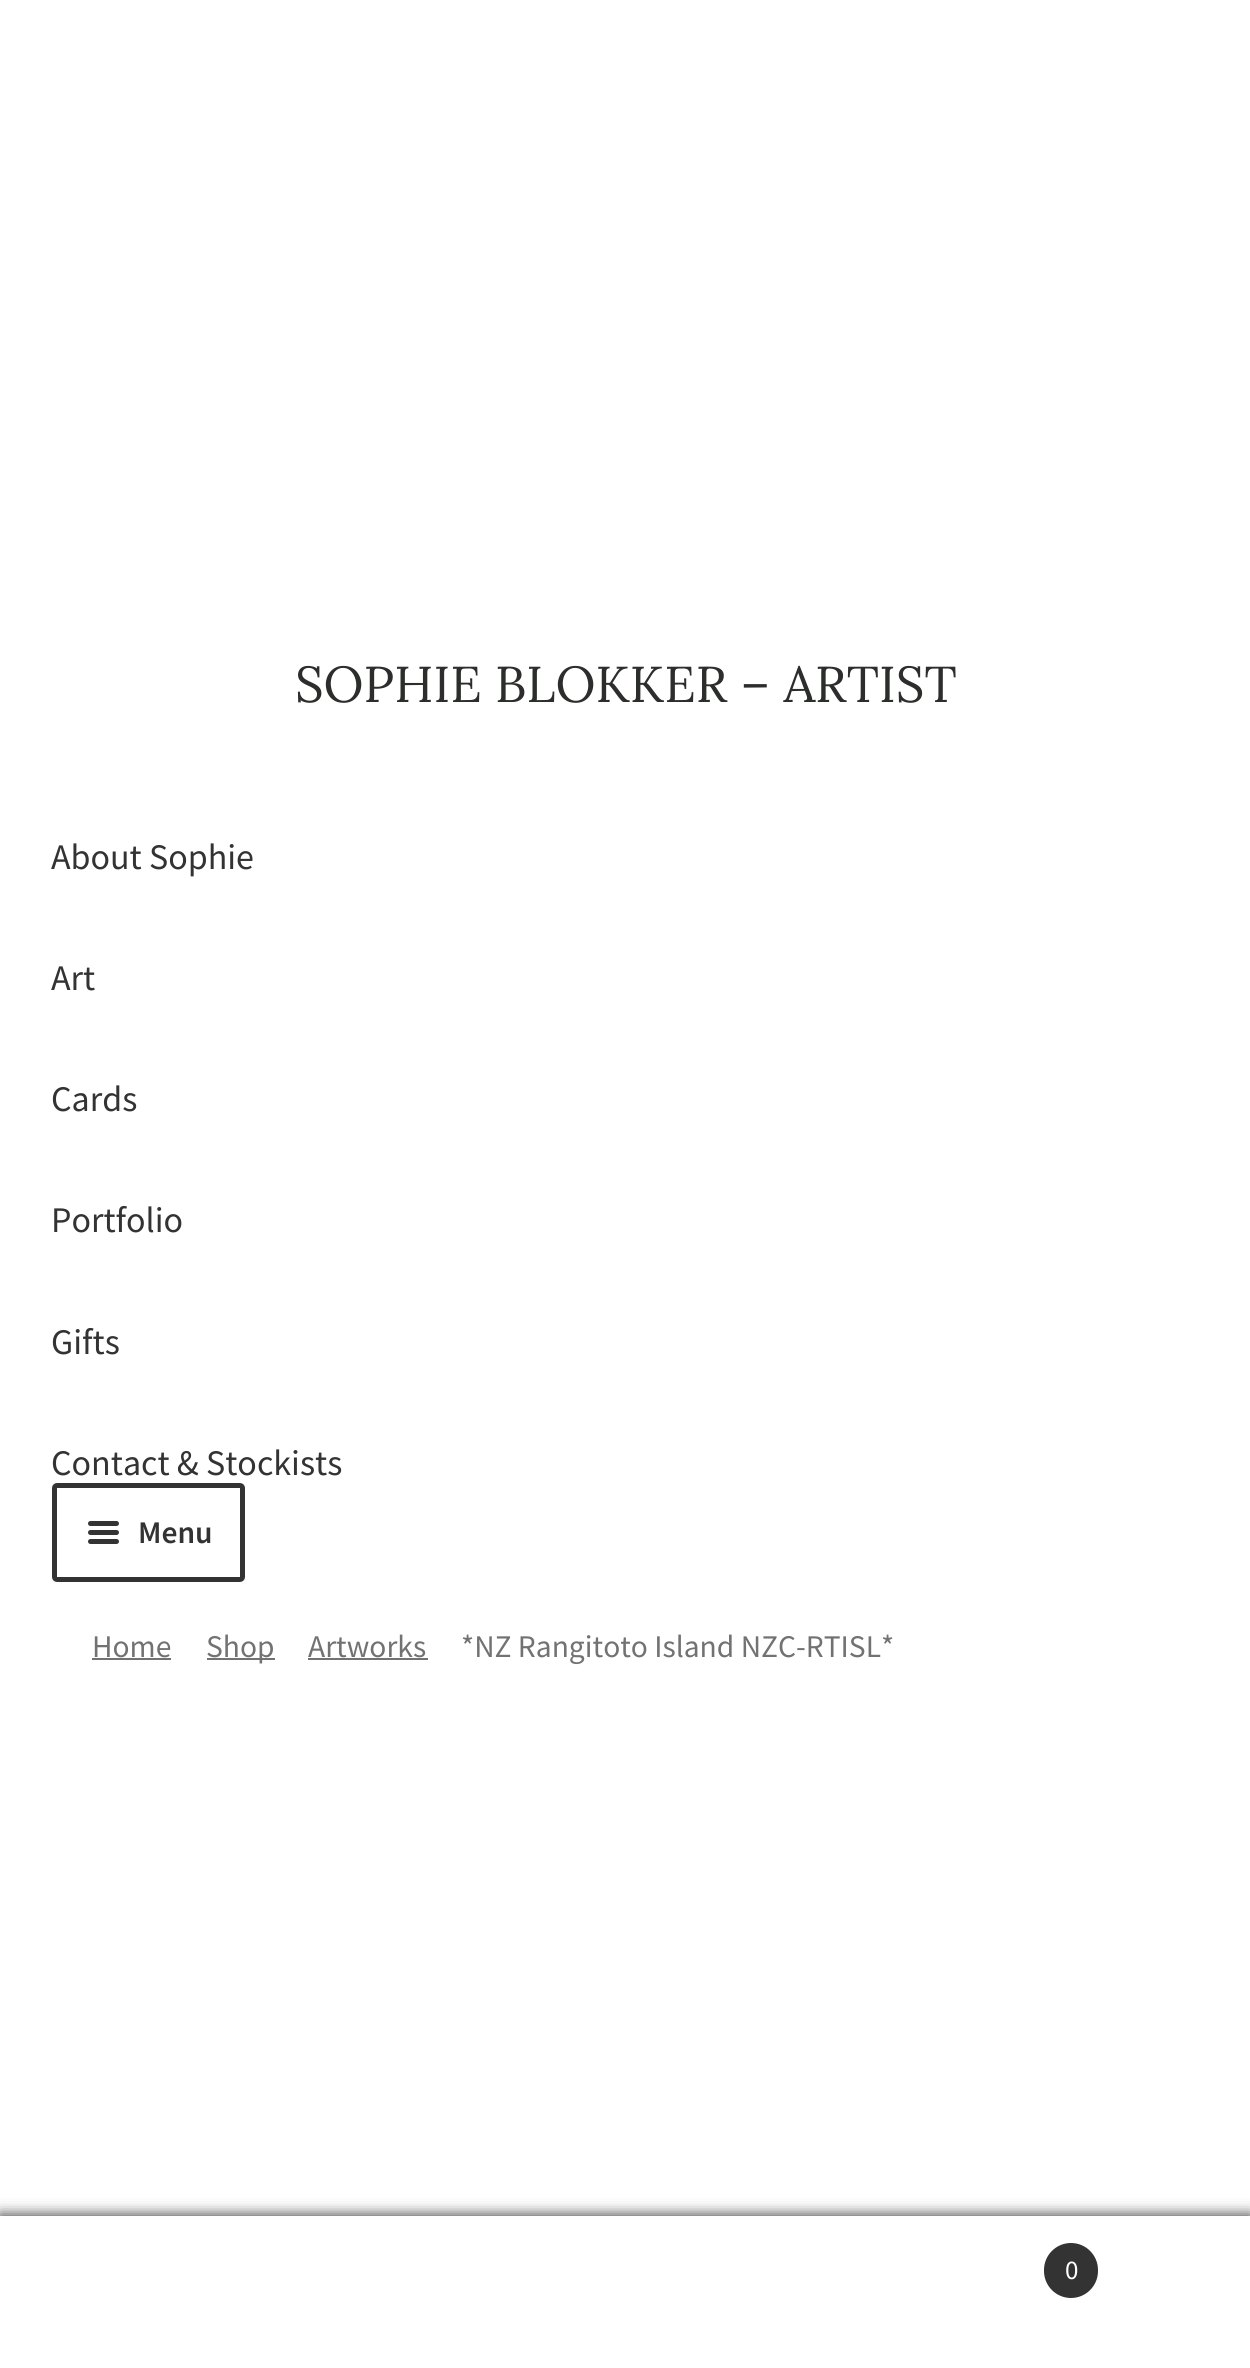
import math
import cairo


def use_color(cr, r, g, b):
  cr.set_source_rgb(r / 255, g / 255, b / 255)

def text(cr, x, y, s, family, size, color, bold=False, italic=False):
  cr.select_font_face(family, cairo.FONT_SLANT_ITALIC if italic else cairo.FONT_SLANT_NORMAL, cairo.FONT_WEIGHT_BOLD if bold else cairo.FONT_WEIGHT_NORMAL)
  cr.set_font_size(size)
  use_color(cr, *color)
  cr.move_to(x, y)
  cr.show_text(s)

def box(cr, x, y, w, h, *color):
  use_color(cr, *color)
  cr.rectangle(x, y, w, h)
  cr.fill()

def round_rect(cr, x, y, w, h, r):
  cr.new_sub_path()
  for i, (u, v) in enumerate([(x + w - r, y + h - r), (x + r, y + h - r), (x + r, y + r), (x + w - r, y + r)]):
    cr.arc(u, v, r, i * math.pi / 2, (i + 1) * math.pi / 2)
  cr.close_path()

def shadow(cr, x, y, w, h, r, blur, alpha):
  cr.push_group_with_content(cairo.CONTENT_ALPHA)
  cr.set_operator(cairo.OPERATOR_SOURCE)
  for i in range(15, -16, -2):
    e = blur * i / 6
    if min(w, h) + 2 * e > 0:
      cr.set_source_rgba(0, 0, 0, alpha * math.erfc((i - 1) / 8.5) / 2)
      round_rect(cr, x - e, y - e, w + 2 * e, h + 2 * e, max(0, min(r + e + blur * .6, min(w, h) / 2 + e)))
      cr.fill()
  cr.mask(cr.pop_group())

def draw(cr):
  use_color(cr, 255, 255, 255)
  cr.paint()
  round_rect(cr, 54.5, 1485.5, 188, 94, 2.5)
  use_color(cr, 51, 51, 51)
  cr.set_line_width(5)
  cr.stroke()
  round_rect(cr, 88, 1521, 31, 5, 2.5)
  cr.fill()
  round_rect(cr, 88, 1530, 31, 5, 2.5)
  cr.fill()
  round_rect(cr, 88, 1539, 31, 5, 2.5)
  cr.fill()
  box(cr, 92, 1658, 79, 2, 114, 114, 114)
  box(cr, 207, 1658, 68, 2, 114, 114, 114)
  box(cr, 308, 1658, 120, 2, 114, 114, 114)
  use_color(cr, 0, 0, 0)
  shadow(cr, 0, 2214, 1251, 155, 0, 7, 0.7)
  box(cr, 0, 2216, 1250, 152, 255, 255, 255)
  use_color(cr, 51, 51, 51)
  round_rect(cr, 1043, 2242, 56, 57, 28)
  cr.fill_preserve()
  use_color(cr, 255, 255, 255)
  cr.set_line_width(2)
  cr.stroke()
  text(cr, 295, 702, "SOPHIE BLOKKER – ARTIST", "Lora", 50.4, (44, 46, 43))
  text(cr, 51, 869, "About Sophie", "Source Sans Pro", 36, (51, 51, 51))
  text(cr, 51, 990, "Art", "Source Sans Pro", 36, (51, 51, 51))
  text(cr, 51, 1111, "Cards", "Source Sans Pro", 36, (51, 51, 51))
  text(cr, 51, 1232, "Portfolio", "Source Sans Pro", 36, (51, 51, 51))
  text(cr, 51, 1354, "Gifts", "Source Sans Pro", 36, (51, 51, 51))
  text(cr, 51, 1475, "Contact & Stockists", "Source Sans Pro", 36, (51, 51, 51))
  text(cr, 138, 1543, "Menu", "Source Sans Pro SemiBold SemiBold", 31.5, (51, 51, 51))
  text(cr, 92, 1657, "Home", "Source Sans Pro", 31.5, (114, 114, 114))
  text(cr, 206, 1657, "Shop", "Source Sans Pro", 31.5, (114, 114, 114))
  text(cr, 308, 1657, "Artworks", "Source Sans Pro", 31.5, (114, 114, 114))
  text(cr, 461, 1657, "*NZ Rangitoto Island NZC-RTISL*", "Source Sans Pro", 31.5, (114, 114, 114))
  text(cr, 1065, 2279, "0", "Source Sans Pro", 27, (255, 255, 255))


surface = cairo.ImageSurface(cairo.FORMAT_RGB24, 1250, 2368)
cr = cairo.Context(surface)
options = cairo.FontOptions()
options.set_hint_metrics(cairo.HINT_METRICS_OFF)
options.set_hint_style(cairo.HINT_STYLE_NONE)
cr.set_font_options(options)
cr.set_miter_limit(4)
draw(cr)
surface.write_to_png("out.png")
